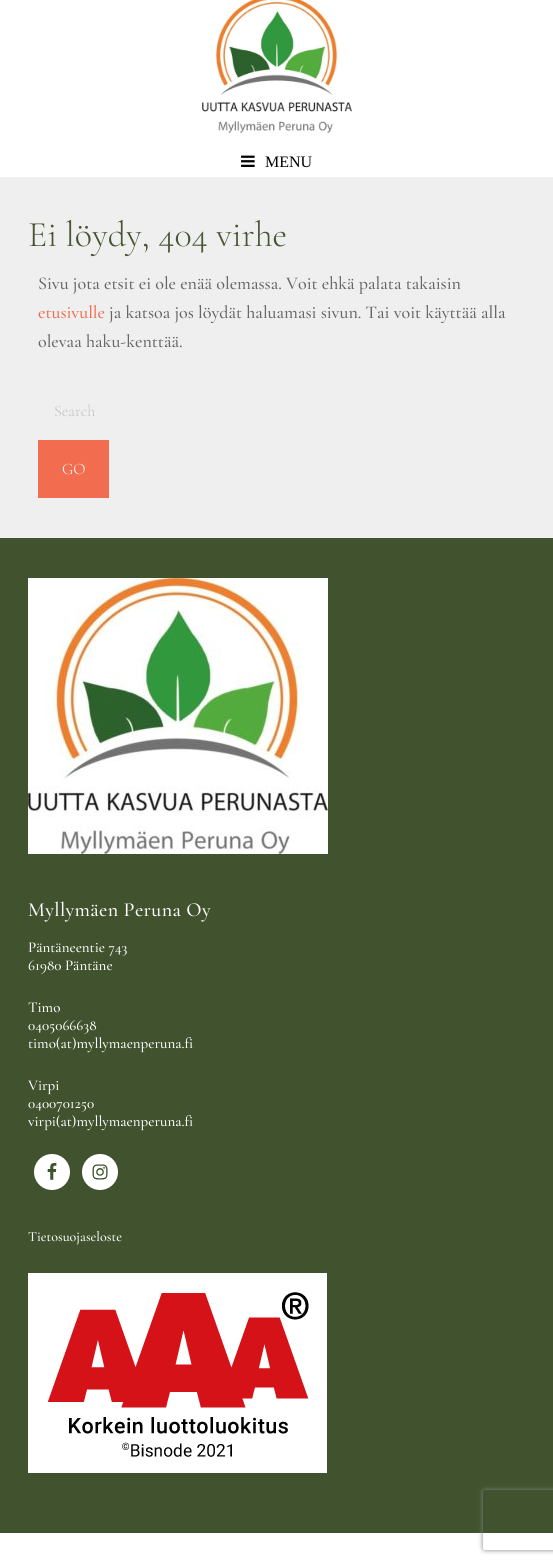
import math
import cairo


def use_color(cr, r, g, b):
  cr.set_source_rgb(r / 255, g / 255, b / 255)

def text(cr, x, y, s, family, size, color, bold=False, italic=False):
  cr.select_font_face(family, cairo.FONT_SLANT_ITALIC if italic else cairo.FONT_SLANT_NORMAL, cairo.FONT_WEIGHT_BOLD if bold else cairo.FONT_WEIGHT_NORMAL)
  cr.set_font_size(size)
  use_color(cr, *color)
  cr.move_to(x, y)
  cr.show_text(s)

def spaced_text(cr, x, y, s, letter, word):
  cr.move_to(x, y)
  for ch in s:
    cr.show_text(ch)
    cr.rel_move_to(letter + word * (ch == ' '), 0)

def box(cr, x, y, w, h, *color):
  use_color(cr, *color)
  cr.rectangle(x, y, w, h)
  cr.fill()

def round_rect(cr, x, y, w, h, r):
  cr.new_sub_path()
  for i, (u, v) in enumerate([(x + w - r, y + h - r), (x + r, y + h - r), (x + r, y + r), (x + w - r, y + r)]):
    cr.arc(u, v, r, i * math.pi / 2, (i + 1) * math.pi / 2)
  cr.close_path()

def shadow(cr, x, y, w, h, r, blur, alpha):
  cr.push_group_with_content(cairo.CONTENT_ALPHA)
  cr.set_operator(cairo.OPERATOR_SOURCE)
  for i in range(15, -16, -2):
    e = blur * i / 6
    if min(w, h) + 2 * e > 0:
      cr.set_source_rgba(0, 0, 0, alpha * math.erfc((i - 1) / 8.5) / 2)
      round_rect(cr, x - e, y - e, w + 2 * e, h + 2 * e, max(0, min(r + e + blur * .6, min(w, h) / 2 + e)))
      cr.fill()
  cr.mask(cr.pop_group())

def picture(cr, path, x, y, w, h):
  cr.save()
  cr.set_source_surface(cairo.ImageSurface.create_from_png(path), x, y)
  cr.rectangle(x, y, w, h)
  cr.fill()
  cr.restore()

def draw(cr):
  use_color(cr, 255, 255, 255)
  cr.paint()
  box(cr, 0, 177, 553, 361, 239, 239, 239)
  picture(cr, "img_01.png", 202, 0, 150, 133)
  picture(cr, "img_02.png", 241, 155, 14, 12)
  box(cr, 38, 440, 71, 58, 242, 108, 79)
  box(cr, 0, 538, 553, 995, 64, 83, 46)
  picture(cr, "img_03.png", 28, 578, 300, 276)
  use_color(cr, 255, 255, 255)
  cr.arc(52, 1172, 18, 0, 2 * math.pi)
  cr.fill()
  picture(cr, "img_04.png", 47, 1163, 10, 17)
  cr.arc(100, 1172, 18, 0, 2 * math.pi)
  cr.fill()
  picture(cr, "img_05.png", 92, 1164, 16, 16)
  picture(cr, "img_06.png", 28, 1273, 299, 200)
  cr.save()
  cr.set_fill_rule(cairo.FILL_RULE_EVEN_ODD)
  cr.new_path()
  cr.move_to(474, 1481)
  cr.line_to(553, 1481)
  cr.line_to(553, 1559)
  cr.line_to(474, 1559)
  cr.close_path()
  cr.move_to(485, 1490)
  cr.line_to(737, 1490)
  cr.curve_to(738, 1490, 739, 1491, 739, 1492)
  cr.line_to(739, 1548)
  cr.curve_to(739, 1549, 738, 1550, 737, 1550)
  cr.line_to(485, 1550)
  cr.curve_to(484, 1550, 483, 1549, 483, 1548)
  cr.line_to(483, 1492)
  cr.curve_to(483, 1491, 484, 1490, 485, 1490)
  cr.close_path()
  cr.clip()
  use_color(cr, 128, 128, 128)
  shadow(cr, 483, 1490, 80, 60, 2, 2.5, 1)
  cr.restore()
  text(cr, 265, 167, "MENU", "Liberation Serif", 16, (0, 0, 0))
  text(cr, 28, 246, "Ei löydy, 404 virhe", "Cormorant Garamond Light", 36, (72, 84, 52))
  text(cr, 38, 289, "Sivu jota etsit ei ole enää olemassa. Voit ehkä palata takaisin", "Cormorant Garamond Medium", 18, (102, 102, 102))
  text(cr, 38, 318, "etusivulle", "Cormorant Garamond Medium", 18, (242, 108, 79))
  text(cr, 109, 318, "ja katsoa jos löydät haluamasi sivun. Tai voit käyttää alla", "Cormorant Garamond Medium", 18, (102, 102, 102))
  text(cr, 38, 347, "olevaa haku-kenttää.", "Cormorant Garamond Medium", 18, (102, 102, 102))
  text(cr, 54, 416, "Search", "Cormorant Garamond Light", 16, (193, 193, 193))
  text(cr, 62, 474, "GO", "Cormorant Garamond Light", 16, (255, 255, 255))
  cr.select_font_face("Cormorant Garamond Medium")
  cr.set_font_size(20)
  spaced_text(cr, 28, 916, "Myllymäen Peruna Oy", 0.4, 0)
  text(cr, 28, 952, "Päntäneentie 743", "Cormorant Garamond Medium", 15, (255, 255, 255))
  text(cr, 28, 970, "61980 Päntäne", "Cormorant Garamond Medium", 15, (255, 255, 255))
  text(cr, 28, 1012, "Timo", "Cormorant Garamond Medium", 15, (255, 255, 255))
  text(cr, 28, 1030, "0405066638", "Cormorant Garamond Medium", 15, (255, 255, 255))
  text(cr, 28, 1048, "timo(at)myllymaenperuna.fi", "Cormorant Garamond Medium", 15, (255, 255, 255))
  text(cr, 28, 1090, "Virpi", "Cormorant Garamond Medium", 15, (255, 255, 255))
  text(cr, 28, 1108, "0400701250", "Cormorant Garamond Medium", 15, (255, 255, 255))
  text(cr, 28, 1126, "virpi(at)myllymaenperuna.fi", "Cormorant Garamond Medium", 15, (255, 255, 255))
  text(cr, 28, 1241, "Tietosuojaseloste", "Cormorant Garamond Medium", 14, (255, 255, 255))


surface = cairo.ImageSurface(cairo.FORMAT_RGB24, 553, 1564)
cr = cairo.Context(surface)
options = cairo.FontOptions()
options.set_hint_metrics(cairo.HINT_METRICS_OFF)
options.set_hint_style(cairo.HINT_STYLE_NONE)
cr.set_font_options(options)
cr.set_miter_limit(4)
draw(cr)
surface.write_to_png("out.png")
